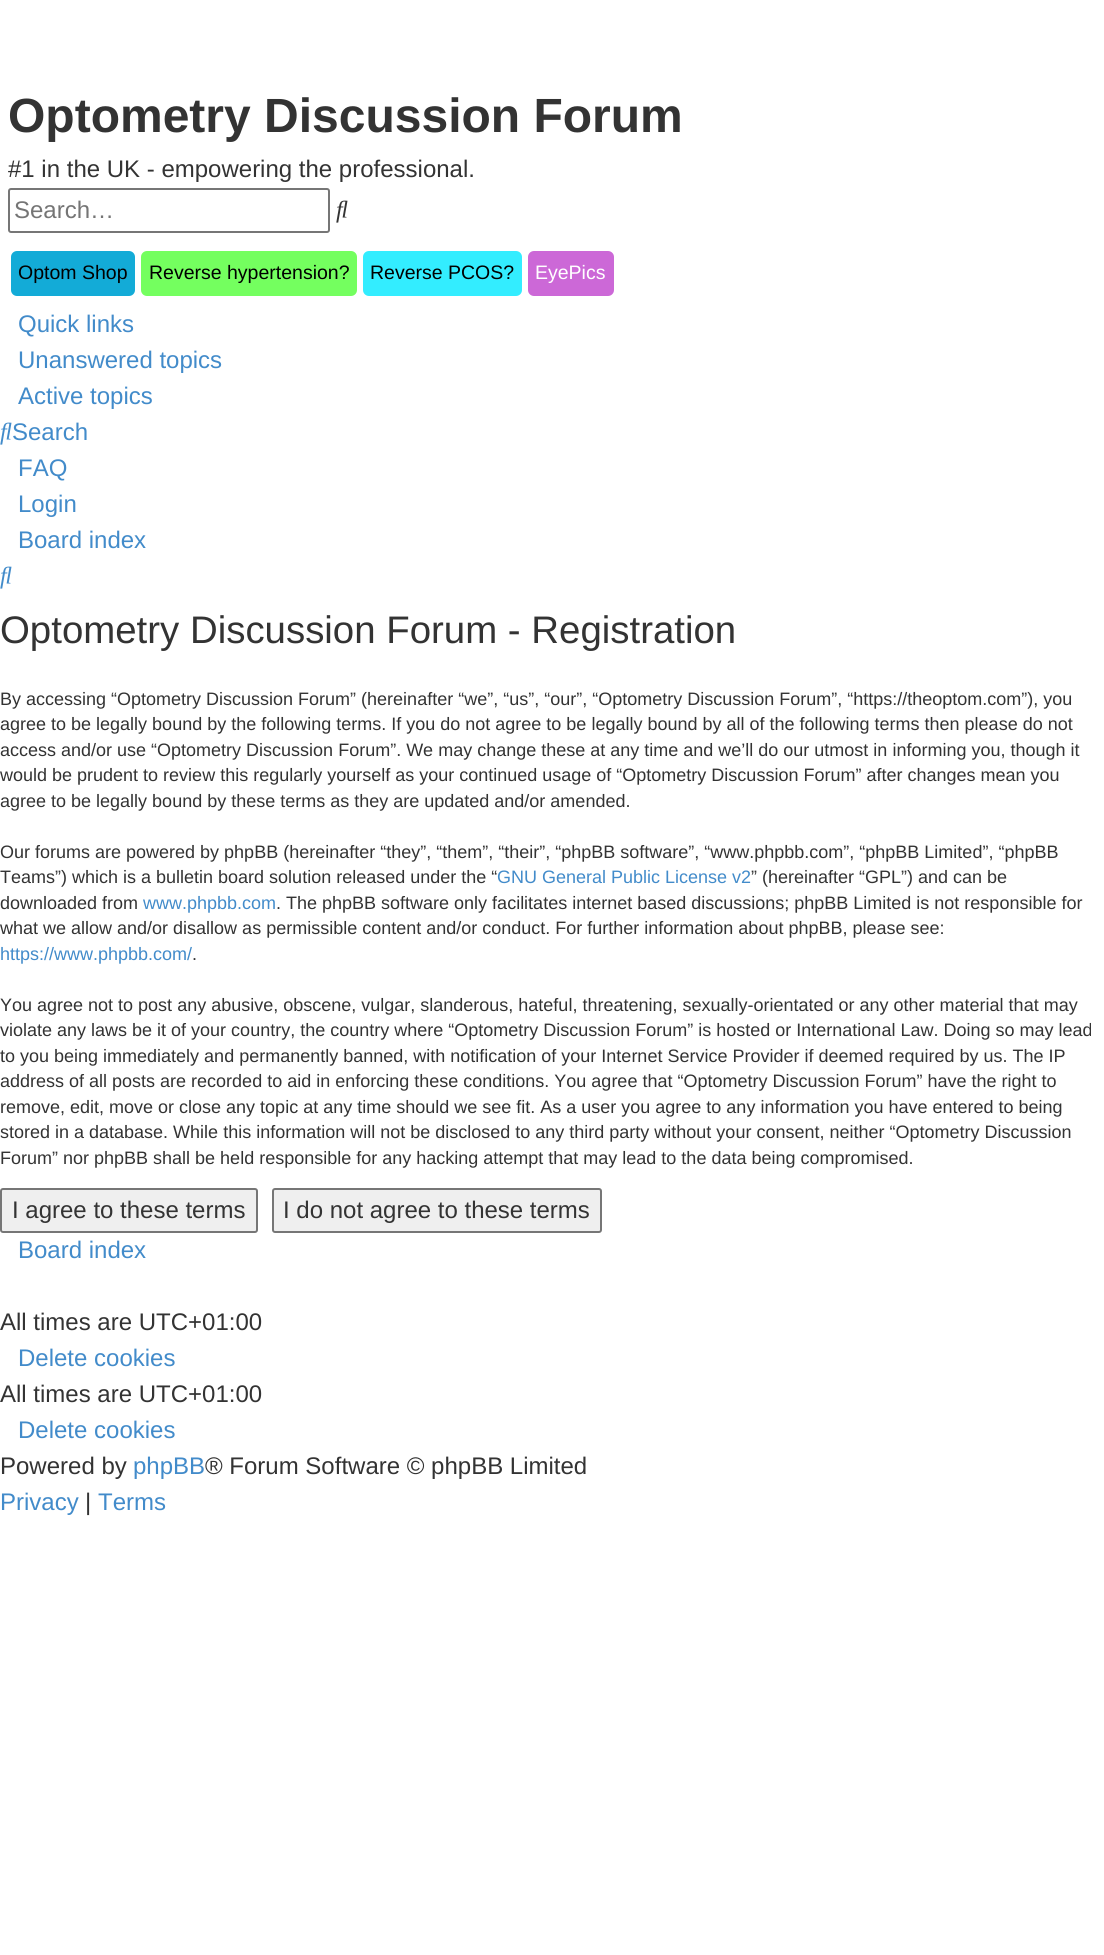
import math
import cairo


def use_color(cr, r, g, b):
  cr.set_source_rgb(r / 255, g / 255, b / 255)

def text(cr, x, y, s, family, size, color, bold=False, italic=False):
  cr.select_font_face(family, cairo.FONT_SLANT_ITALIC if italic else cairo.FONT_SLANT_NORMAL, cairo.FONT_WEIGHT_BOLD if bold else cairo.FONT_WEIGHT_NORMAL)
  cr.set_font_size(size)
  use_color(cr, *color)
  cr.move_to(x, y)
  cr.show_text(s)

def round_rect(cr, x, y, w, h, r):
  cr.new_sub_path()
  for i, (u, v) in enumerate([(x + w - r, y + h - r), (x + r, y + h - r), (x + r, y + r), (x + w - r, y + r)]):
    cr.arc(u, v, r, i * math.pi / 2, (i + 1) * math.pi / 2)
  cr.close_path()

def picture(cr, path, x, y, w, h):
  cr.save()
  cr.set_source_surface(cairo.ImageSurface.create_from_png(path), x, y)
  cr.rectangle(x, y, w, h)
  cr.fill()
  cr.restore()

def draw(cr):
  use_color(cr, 255, 255, 255)
  cr.paint()
  round_rect(cr, 9, 189, 320, 43, 2)
  use_color(cr, 118, 118, 118)
  cr.stroke()
  picture(cr, "img_01.png", 336, 200, 12, 23)
  use_color(cr, 19, 171, 215)
  round_rect(cr, 11, 251, 124, 45, 6)
  cr.fill()
  use_color(cr, 116, 255, 95)
  round_rect(cr, 141, 251, 216, 45, 6)
  cr.fill()
  use_color(cr, 51, 237, 255)
  round_rect(cr, 363, 251, 159, 45, 6)
  cr.fill()
  use_color(cr, 204, 104, 215)
  round_rect(cr, 528, 251, 86, 45, 6)
  cr.fill()
  picture(cr, "img_02.png", 0, 422, 12, 23)
  picture(cr, "img_02.png", 0, 566, 12, 23)
  use_color(cr, 239, 239, 239)
  round_rect(cr, 1, 1189, 256, 43, 2)
  cr.fill_preserve()
  use_color(cr, 118, 118, 118)
  cr.stroke()
  use_color(cr, 239, 239, 239)
  round_rect(cr, 273, 1189, 328, 43, 2)
  cr.fill_preserve()
  use_color(cr, 118, 118, 118)
  cr.stroke()
  text(cr, 8, 132, "Optometry Discussion Forum", "Liberation Sans", 48, (51, 51, 51), bold=True)
  text(cr, 8, 177, "#1 in the UK - empowering the professional.", "Liberation Sans", 24, (51, 51, 51))
  text(cr, 14, 218, "Search…", "Liberation Sans", 24, (117, 117, 117))
  text(cr, 18, 279, "Optom Shop", "Liberation Sans", 19.5, (0, 0, 0))
  text(cr, 149, 279, "Reverse hypertension?", "Liberation Sans", 19.5, (0, 0, 0))
  text(cr, 370, 279, "Reverse PCOS?", "Liberation Sans", 19.5, (0, 0, 0))
  text(cr, 535, 279, "EyePics", "Liberation Sans", 19.5, (255, 255, 255))
  text(cr, 18, 332, "Quick links", "Liberation Sans", 24, (66, 139, 202))
  text(cr, 18, 368, "Unanswered topics", "Liberation Sans", 24, (66, 139, 202))
  text(cr, 18, 404, "Active topics", "Liberation Sans", 24, (66, 139, 202))
  text(cr, 12, 440, "Search", "Liberation Sans", 24, (66, 139, 202))
  text(cr, 18, 476, "FAQ", "Liberation Sans", 24, (66, 139, 202))
  text(cr, 18, 512, "Login", "Liberation Sans", 24, (66, 139, 202))
  text(cr, 18, 548, "Board index", "Liberation Sans", 24, (66, 139, 202))
  text(cr, 0, 643, "Optometry Discussion Forum - Registration", "Liberation Sans", 38.4, (51, 51, 51))
  text(cr, 0, 705, "By accessing “Optometry Discussion Forum” (hereinafter “we”, “us”, “our”, “Optometry Discussion Forum”, “https://theoptom.com”), you", "Liberation Sans", 18, (51, 51, 51))
  text(cr, 0, 730, "agree to be legally bound by the following terms. If you do not agree to be legally bound by all of the following terms then please do not", "Liberation Sans", 18, (51, 51, 51))
  text(cr, 0, 756, "access and/or use “Optometry Discussion Forum”. We may change these at any time and we’ll do our utmost in informing you, though it", "Liberation Sans", 18, (51, 51, 51))
  text(cr, 0, 781, "would be prudent to review this regularly yourself as your continued usage of “Optometry Discussion Forum” after changes mean you", "Liberation Sans", 18, (51, 51, 51))
  text(cr, 0, 807, "agree to be legally bound by these terms as they are updated and/or amended.", "Liberation Sans", 18, (51, 51, 51))
  text(cr, 0, 858, "Our forums are powered by phpBB (hereinafter “they”, “them”, “their”, “phpBB software”, “www.phpbb.com”, “phpBB Limited”, “phpBB", "Liberation Sans", 18, (51, 51, 51))
  text(cr, 0, 883, "Teams”) which is a bulletin board solution released under the “", "Liberation Sans", 18, (51, 51, 51))
  text(cr, 497, 883, "GNU General Public License v2", "Liberation Sans", 18, (66, 139, 202))
  text(cr, 751, 883, "” (hereinafter “GPL”) and can be", "Liberation Sans", 18, (51, 51, 51))
  text(cr, 0, 909, "downloaded from", "Liberation Sans", 18, (51, 51, 51))
  text(cr, 143, 909, "www.phpbb.com", "Liberation Sans", 18, (66, 139, 202))
  text(cr, 276, 909, ". The phpBB software only facilitates internet based discussions; phpBB Limited is not responsible for", "Liberation Sans", 18, (51, 51, 51))
  text(cr, 0, 934, "what we allow and/or disallow as permissible content and/or conduct. For further information about phpBB, please see:", "Liberation Sans", 18, (51, 51, 51))
  text(cr, 0, 960, "https://www.phpbb.com/", "Liberation Sans", 18, (66, 139, 202))
  text(cr, 192, 960, ".", "Liberation Sans", 18, (51, 51, 51))
  text(cr, 0, 1011, "You agree not to post any abusive, obscene, vulgar, slanderous, hateful, threatening, sexually-orientated or any other material that may", "Liberation Sans", 18, (51, 51, 51))
  text(cr, 0, 1036, "violate any laws be it of your country, the country where “Optometry Discussion Forum” is hosted or International Law. Doing so may lead", "Liberation Sans", 18, (51, 51, 51))
  text(cr, 0, 1062, "to you being immediately and permanently banned, with notification of your Internet Service Provider if deemed required by us. The IP", "Liberation Sans", 18, (51, 51, 51))
  text(cr, 0, 1087, "address of all posts are recorded to aid in enforcing these conditions. You agree that “Optometry Discussion Forum” have the right to", "Liberation Sans", 18, (51, 51, 51))
  text(cr, 0, 1113, "remove, edit, move or close any topic at any time should we see fit. As a user you agree to any information you have entered to being", "Liberation Sans", 18, (51, 51, 51))
  text(cr, 0, 1138, "stored in a database. While this information will not be disclosed to any third party without your consent, neither “Optometry Discussion", "Liberation Sans", 18, (51, 51, 51))
  text(cr, 0, 1164, "Forum” nor phpBB shall be held responsible for any hacking attempt that may lead to the data being compromised.", "Liberation Sans", 18, (51, 51, 51))
  text(cr, 12, 1218, "I agree to these terms", "Liberation Sans", 24, (51, 51, 51))
  text(cr, 283, 1218, "I do not agree to these terms", "Liberation Sans", 24, (51, 51, 51))
  text(cr, 18, 1258, "Board index", "Liberation Sans", 24, (66, 139, 202))
  text(cr, 0, 1330, "All times are UTC+01:00", "Liberation Sans", 24, (51, 51, 51))
  text(cr, 18, 1366, "Delete cookies", "Liberation Sans", 24, (66, 139, 202))
  text(cr, 0, 1402, "All times are UTC+01:00", "Liberation Sans", 24, (51, 51, 51))
  text(cr, 18, 1438, "Delete cookies", "Liberation Sans", 24, (66, 139, 202))
  text(cr, 0, 1474, "Powered by", "Liberation Sans", 24, (51, 51, 51))
  text(cr, 133, 1474, "phpBB", "Liberation Sans", 24, (66, 139, 202))
  text(cr, 205, 1474, "® Forum Software © phpBB Limited", "Liberation Sans", 24, (51, 51, 51))
  text(cr, 0, 1510, "Privacy", "Liberation Sans", 24, (66, 139, 202))
  text(cr, 85, 1510, "|", "Liberation Sans", 24, (51, 51, 51))
  text(cr, 98, 1510, "Terms", "Liberation Sans", 24, (66, 139, 202))


surface = cairo.ImageSurface(cairo.FORMAT_RGB24, 1104, 1955)
cr = cairo.Context(surface)
options = cairo.FontOptions()
options.set_hint_metrics(cairo.HINT_METRICS_OFF)
options.set_hint_style(cairo.HINT_STYLE_NONE)
cr.set_font_options(options)
cr.set_miter_limit(4)
draw(cr)
surface.write_to_png("out.png")
